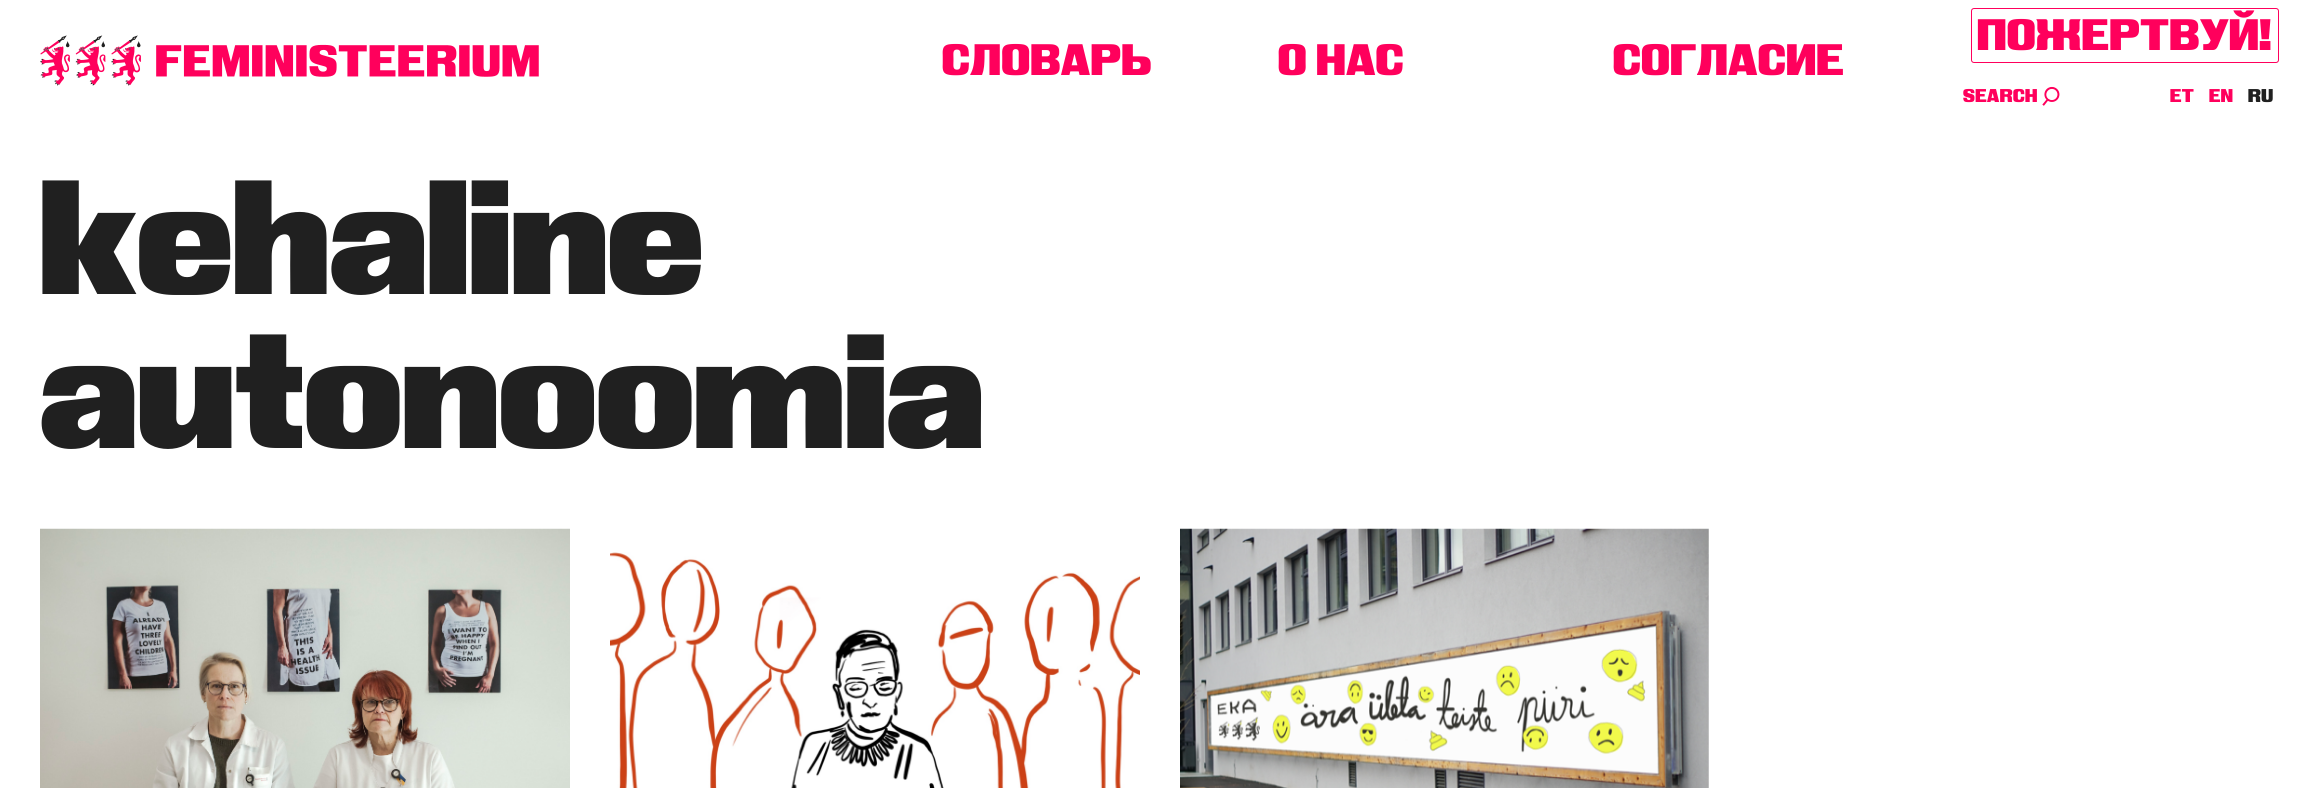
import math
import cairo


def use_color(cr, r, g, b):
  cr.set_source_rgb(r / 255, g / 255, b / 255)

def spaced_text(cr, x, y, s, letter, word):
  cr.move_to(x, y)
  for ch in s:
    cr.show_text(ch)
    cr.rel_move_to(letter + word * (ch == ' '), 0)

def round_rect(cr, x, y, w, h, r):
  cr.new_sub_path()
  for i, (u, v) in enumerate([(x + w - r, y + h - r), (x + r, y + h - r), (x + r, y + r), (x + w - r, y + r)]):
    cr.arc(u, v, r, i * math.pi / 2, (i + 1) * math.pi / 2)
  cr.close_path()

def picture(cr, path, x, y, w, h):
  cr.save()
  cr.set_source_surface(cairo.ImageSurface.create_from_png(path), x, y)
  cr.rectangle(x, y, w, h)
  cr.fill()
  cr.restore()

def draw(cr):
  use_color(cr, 255, 255, 255)
  cr.paint()
  picture(cr, "img_01.png", 40, 35, 499, 51)
  round_rect(cr, 1971.5, 8.5, 307, 54, 2.5)
  use_color(cr, 255, 0, 92)
  cr.set_line_width(1)
  cr.stroke()
  picture(cr, "img_02.png", 2042, 86, 18, 20)
  picture(cr, "img_03.png", 40, 528, 530, 260)
  picture(cr, "img_04.png", 610, 552, 530, 236)
  picture(cr, "img_05.png", 1180, 528, 529, 260)
  cr.select_font_face("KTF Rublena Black")
  cr.set_font_size(44)
  spaced_text(cr, 942, 75, "СЛОВАРЬ", 0.75, 0)
  spaced_text(cr, 1278, 75, "O НАС", 0.75, 0)
  spaced_text(cr, 1613, 75, "СОГЛАСИЕ", 0.75, 0)
  spaced_text(cr, 1977, 50, "ПОЖЕРТВУЙ!", 0.75, 0)
  cr.set_font_size(18.5)
  spaced_text(cr, 1963, 102, "SEARCH", 0.5, 0)
  spaced_text(cr, 2170, 102, "ET", 0.5, 0)
  spaced_text(cr, 2209, 102, "EN", 0.5, 0)
  use_color(cr, 32, 32, 32)
  spaced_text(cr, 2248, 102, "RU", 0.5, 0)
  cr.set_font_size(162.25)
  spaced_text(cr, 40, 294, "kehaline", 0.75, 0)
  spaced_text(cr, 40, 448, "autonoomia", 0.75, 0)


surface = cairo.ImageSurface(cairo.FORMAT_RGB24, 2318, 788)
cr = cairo.Context(surface)
options = cairo.FontOptions()
options.set_hint_metrics(cairo.HINT_METRICS_OFF)
options.set_hint_style(cairo.HINT_STYLE_NONE)
cr.set_font_options(options)
cr.set_miter_limit(4)
draw(cr)
surface.write_to_png("out.png")
